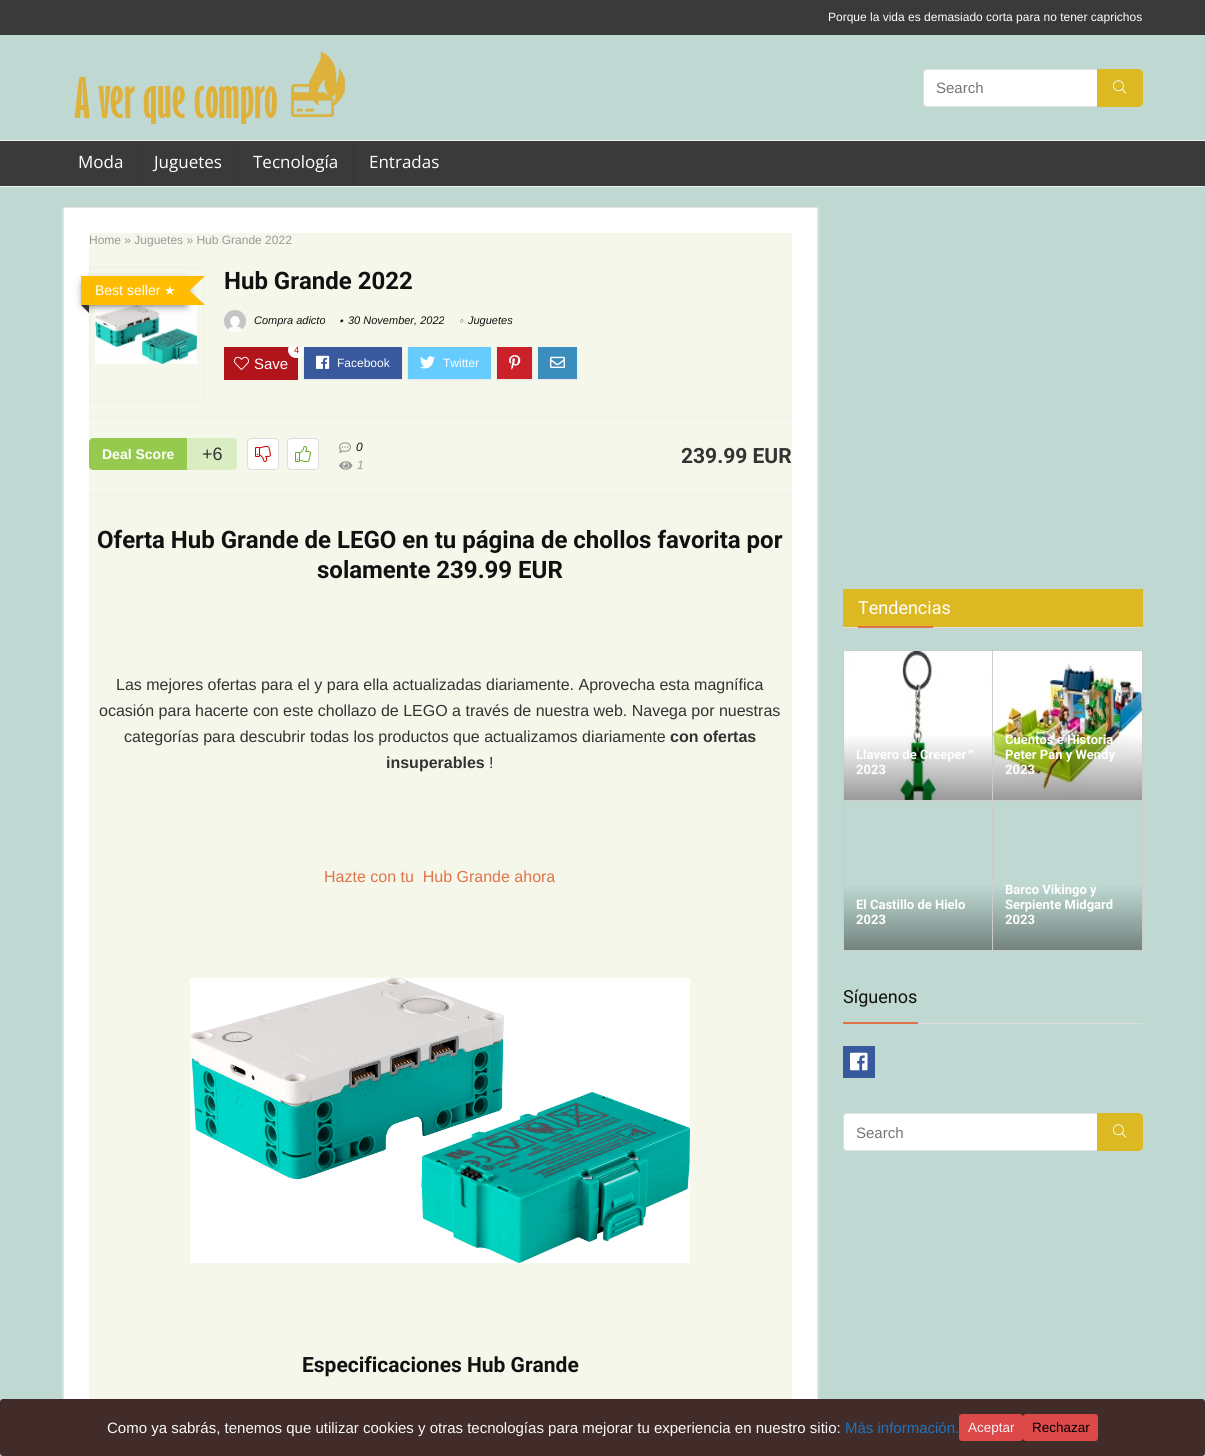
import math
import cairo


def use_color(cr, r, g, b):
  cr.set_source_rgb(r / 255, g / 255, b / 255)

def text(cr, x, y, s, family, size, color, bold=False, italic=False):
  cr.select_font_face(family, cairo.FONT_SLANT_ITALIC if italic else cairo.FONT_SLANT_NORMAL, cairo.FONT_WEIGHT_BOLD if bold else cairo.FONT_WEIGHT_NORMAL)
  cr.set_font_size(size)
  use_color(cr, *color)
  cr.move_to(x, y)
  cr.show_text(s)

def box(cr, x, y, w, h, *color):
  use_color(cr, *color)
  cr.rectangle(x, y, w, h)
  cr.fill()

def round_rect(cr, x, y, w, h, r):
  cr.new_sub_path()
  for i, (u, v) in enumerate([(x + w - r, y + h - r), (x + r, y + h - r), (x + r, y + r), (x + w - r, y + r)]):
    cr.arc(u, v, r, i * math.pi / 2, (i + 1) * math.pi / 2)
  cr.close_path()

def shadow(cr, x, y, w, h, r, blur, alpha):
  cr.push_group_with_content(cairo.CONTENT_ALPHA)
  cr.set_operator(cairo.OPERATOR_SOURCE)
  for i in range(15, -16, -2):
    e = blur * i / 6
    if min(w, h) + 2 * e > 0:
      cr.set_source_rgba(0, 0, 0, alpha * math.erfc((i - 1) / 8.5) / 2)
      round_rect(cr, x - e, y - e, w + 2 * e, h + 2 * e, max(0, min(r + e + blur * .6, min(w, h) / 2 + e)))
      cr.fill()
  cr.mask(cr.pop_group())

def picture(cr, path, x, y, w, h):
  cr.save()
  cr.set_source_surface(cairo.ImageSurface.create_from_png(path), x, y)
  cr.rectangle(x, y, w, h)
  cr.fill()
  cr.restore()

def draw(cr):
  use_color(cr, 191, 216, 210)
  cr.paint()
  box(cr, 0, 0, 1205, 35, 58, 58, 58)
  picture(cr, "img_01.png", 74, 52, 271, 72)
  use_color(cr, 255, 255, 255)
  round_rect(cr, 923.5, 69.5, 219, 37, 3.5)
  cr.fill_preserve()
  use_color(cr, 225, 225, 225)
  cr.set_line_width(1)
  cr.stroke()
  use_color(cr, 220, 184, 35)
  cr.new_path()
  cr.move_to(1097, 69)
  cr.line_to(1139, 69)
  cr.curve_to(1141, 69, 1143, 71, 1143, 73)
  cr.line_to(1143, 103)
  cr.curve_to(1143, 105, 1141, 107, 1139, 107)
  cr.line_to(1097, 107)
  cr.close_path()
  cr.fill()
  picture(cr, "img_02.png", 1113, 80, 14, 14)
  box(cr, 0, 141, 1205, 45, 58, 58, 58)
  box(cr, 0, 140, 1205, 1, 238, 238, 238)
  box(cr, 0, 186, 1205, 1, 238, 238, 238)
  box(cr, 138, 141, 1, 45, 53, 53, 53)
  box(cr, 237, 141, 1, 45, 53, 53, 53)
  box(cr, 353, 141, 1, 45, 53, 53, 53)
  use_color(cr, 236, 236, 236)
  shadow(cr, 63, 209, 755, 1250, 0, 1, 1)
  box(cr, 64, 208, 753, 1191, 255, 255, 255)
  cr.rectangle(63.5, 207.5, 754, 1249)
  use_color(cr, 227, 227, 227)
  cr.stroke()
  box(cr, 89, 233, 703, 1166, 244, 247, 233)
  cr.rectangle(89.5, 267.5, 114, 134)
  use_color(cr, 238, 238, 238)
  cr.stroke()
  picture(cr, "img_03.png", 95, 305, 102, 59)
  use_color(cr, 0, 0, 0)
  shadow(cr, 86, 284, 99, 19, 0, 5, 1)
  box(cr, 81, 276, 109, 29, 255, 188, 0)
  use_color(cr, 51, 51, 51)
  cr.new_path()
  cr.move_to(89, 305)
  cr.line_to(89, 313)
  cr.line_to(81, 305)
  cr.close_path()
  cr.fill()
  use_color(cr, 255, 188, 0)
  cr.new_path()
  cr.move_to(190, 276)
  cr.line_to(205, 276)
  cr.line_to(190, 290)
  cr.close_path()
  cr.fill()
  cr.new_path()
  cr.move_to(205, 305)
  cr.line_to(190, 305)
  cr.line_to(190, 291)
  cr.close_path()
  cr.fill()
  picture(cr, "img_04.png", 224, 310, 22, 22)
  picture(cr, "img_05.png", 340, 319, 4, 4)
  picture(cr, "img_06.png", 460, 319, 4, 4)
  box(cr, 224, 347, 74, 33, 177, 20, 26)
  cr.save()
  cr.rectangle(224, 347, 538, 39)
  cr.clip()
  use_color(cr, 255, 255, 255)
  round_rect(cr, 288, 342, 17, 16, 8)
  cr.fill()
  cr.restore()
  picture(cr, "img_07.png", 234, 356, 15, 14)
  use_color(cr, 228, 228, 228)
  shadow(cr, 304, 348, 98, 32, 0, 1, 1)
  box(cr, 304, 347, 98, 32, 57, 89, 159)
  picture(cr, "img_08.png", 316, 355, 14, 14)
  use_color(cr, 228, 228, 228)
  shadow(cr, 408, 348, 83, 32, 0, 1, 1)
  box(cr, 408, 347, 83, 32, 102, 204, 255)
  picture(cr, "img_09.png", 420, 356, 15, 13)
  use_color(cr, 228, 228, 228)
  shadow(cr, 497, 348, 35, 32, 0, 1, 1)
  box(cr, 497, 347, 35, 32, 202, 33, 42)
  picture(cr, "img_10.png", 509, 355, 12, 15)
  use_color(cr, 228, 228, 228)
  shadow(cr, 538, 348, 39, 32, 0, 1, 1)
  box(cr, 538, 347, 39, 32, 59, 141, 189)
  picture(cr, "img_11.png", 550, 356, 15, 12)
  box(cr, 89, 417, 703, 1, 238, 238, 238)
  box(cr, 89, 494, 703, 1, 238, 238, 238)
  use_color(cr, 150, 202, 78)
  cr.new_path()
  cr.move_to(93, 438)
  cr.line_to(187, 438)
  cr.line_to(187, 470)
  cr.line_to(93, 470)
  cr.curve_to(91, 470, 89, 468, 89, 466)
  cr.line_to(89, 442)
  cr.curve_to(89, 440, 91, 438, 93, 438)
  cr.close_path()
  cr.fill()
  use_color(cr, 218, 236, 194)
  cr.new_path()
  cr.move_to(187, 438)
  cr.line_to(233, 438)
  cr.curve_to(235, 438, 237, 440, 237, 442)
  cr.line_to(237, 466)
  cr.curve_to(237, 468, 235, 470, 233, 470)
  cr.line_to(187, 470)
  cr.close_path()
  cr.fill()
  use_color(cr, 255, 255, 255)
  round_rect(cr, 247.5, 438.5, 31, 31, 3.5)
  cr.fill_preserve()
  use_color(cr, 220, 221, 222)
  cr.stroke()
  picture(cr, "img_12.png", 255, 446, 16, 16)
  use_color(cr, 255, 255, 255)
  round_rect(cr, 287.5, 438.5, 31, 31, 3.5)
  cr.fill_preserve()
  use_color(cr, 220, 221, 222)
  cr.stroke()
  picture(cr, "img_13.png", 295, 446, 16, 16)
  picture(cr, "img_14.png", 339, 442, 12, 11)
  picture(cr, "img_15.png", 339, 461, 14, 9)
  picture(cr, "img_16.png", 190, 978, 500, 285)
  box(cr, 843, 589, 300, 38, 220, 184, 35)
  box(cr, 843, 627, 300, 1, 221, 221, 221)
  box(cr, 858, 626, 75, 2, 223, 116, 74)
  box(cr, 843, 650, 300, 1, 204, 204, 204)
  box(cr, 843, 650, 1, 301, 204, 204, 204)
  box(cr, 992, 651, 1, 300, 204, 204, 204)
  box(cr, 844, 800, 149, 1, 204, 204, 204)
  picture(cr, "img_17.png", 844, 651, 148, 149)
  box(cr, 1142, 651, 1, 300, 204, 204, 204)
  box(cr, 993, 800, 150, 1, 204, 204, 204)
  picture(cr, "img_18.png", 993, 651, 149, 149)
  box(cr, 844, 950, 299, 1, 204, 204, 204)
  gradient = cairo.LinearGradient(918, 884, 918, 950)
  gradient.add_color_stop_rgba(0, 0.749, 0.847, 0.824, 1)
  gradient.add_color_stop_rgba(0.4, 0.635, 0.722, 0.702, 1)
  gradient.add_color_stop_rgba(1, 0.451, 0.51, 0.494, 1)
  cr.set_source(gradient)
  cr.rectangle(844, 886, 148, 64)
  cr.fill()
  gradient = cairo.LinearGradient(1068, 884, 1068, 950)
  gradient.add_color_stop_rgba(0, 0.749, 0.847, 0.824, 1)
  gradient.add_color_stop_rgba(0.4, 0.635, 0.722, 0.702, 1)
  gradient.add_color_stop_rgba(1, 0.451, 0.51, 0.494, 1)
  cr.set_source(gradient)
  cr.rectangle(993, 886, 149, 64)
  cr.fill()
  box(cr, 918, 1023, 225, 1, 221, 221, 221)
  box(cr, 843, 1022, 75, 2, 223, 116, 74)
  box(cr, 843, 1046, 32, 32, 57, 89, 159)
  picture(cr, "img_19.png", 850, 1052, 18, 19)
  use_color(cr, 255, 255, 255)
  round_rect(cr, 843.5, 1113.5, 299, 37, 3.5)
  cr.fill_preserve()
  use_color(cr, 225, 225, 225)
  cr.stroke()
  use_color(cr, 220, 184, 35)
  cr.new_path()
  cr.move_to(1097, 1113)
  cr.line_to(1139, 1113)
  cr.curve_to(1141, 1113, 1143, 1115, 1143, 1117)
  cr.line_to(1143, 1147)
  cr.curve_to(1143, 1149, 1141, 1151, 1139, 1151)
  cr.line_to(1097, 1151)
  cr.close_path()
  cr.fill()
  picture(cr, "img_02.png", 1113, 1124, 14, 14)
  use_color(cr, 66, 44, 42)
  round_rect(cr, 0, 1399, 1205, 57, 3)
  cr.fill()
  use_color(cr, 221, 73, 73)
  round_rect(cr, 959, 1414, 64, 27, 3)
  cr.fill()
  round_rect(cr, 1023, 1414, 75, 27, 3)
  cr.fill()
  text(cr, 828, 21, "Porque la vida es demasiado corta para no tener caprichos", "Liberation Sans", 12, (255, 255, 255))
  text(cr, 936, 93, "Search", "Liberation Sans", 15, (117, 117, 117))
  text(cr, 78, 168, "Moda", "Open Sans", 17, (255, 255, 255))
  text(cr, 154, 168, "Juguetes", "Open Sans", 17, (255, 255, 255))
  text(cr, 253, 168, "Tecnología", "Open Sans", 17, (255, 255, 255))
  text(cr, 369, 168, "Entradas", "Open Sans", 17, (255, 255, 255))
  text(cr, 89, 244, "Home » Juguetes » Hub Grande 2022", "Liberation Sans", 12, (153, 153, 153))
  text(cr, 95, 295, "Best seller", "Liberation Sans", 14, (255, 255, 255))
  text(cr, 164, 295, "★", "DejaVu Sans", 13, (255, 255, 255))
  text(cr, 224, 289, "Hub Grande 2022", "Roboto", 24, (17, 17, 17), bold=True)
  text(cr, 254, 324, "Compra adicto", "Liberation Sans", 11, (17, 17, 17), italic=True)
  text(cr, 348, 324, "30 November, 2022", "Liberation Sans", 11, (17, 17, 17), italic=True)
  text(cr, 468, 324, "Juguetes", "Liberation Sans", 11, (17, 17, 17), italic=True)
  text(cr, 294, 353, "4", "Liberation Sans", 9, (204, 0, 0))
  text(cr, 254, 369, "Save", "Liberation Sans", 15, (255, 255, 255))
  text(cr, 337, 367, "Facebook", "Liberation Sans", 12, (255, 255, 255))
  text(cr, 443, 367, "Twitter", "Liberation Sans", 12, (255, 255, 255))
  text(cr, 102, 459, "Deal Score", "Liberation Sans", 14, (255, 255, 255), bold=True)
  text(cr, 202, 460, "+6", "Liberation Sans", 18, (51, 51, 51))
  text(cr, 356, 451, "0", "Liberation Sans", 12, (17, 17, 17), italic=True)
  text(cr, 357, 469, "1", "Liberation Sans", 12, (153, 153, 153), italic=True)
  text(cr, 681, 463, "239.99 EUR", "Roboto", 21, (51, 51, 51), bold=True)
  text(cr, 97, 548, "Oferta Hub Grande de LEGO en tu página de chollos favorita por", "Roboto", 24, (17, 17, 17), bold=True)
  text(cr, 317, 578, "solamente 239.99 EUR", "Roboto", 24, (17, 17, 17), bold=True)
  text(cr, 116, 690, "Las mejores ofertas para el y para ella actualizadas diariamente. Aprovecha esta magnífica", "Liberation Sans", 16, (51, 51, 51))
  text(cr, 99, 716, "ocasión para hacerte con este chollazo de LEGO a través de nuestra web. Navega por nuestras", "Liberation Sans", 16, (51, 51, 51))
  text(cr, 124, 742, "categorías para descubrir todas los productos que actualizamos diariamente", "Liberation Sans", 16, (51, 51, 51))
  text(cr, 670, 742, "con ofertas", "Liberation Sans", 16, (51, 51, 51), bold=True)
  text(cr, 386, 768, "insuperables", "Liberation Sans", 16, (51, 51, 51), bold=True)
  text(cr, 489, 768, "!", "Liberation Sans", 16, (51, 51, 51))
  text(cr, 324, 882, "Hazte con tu  Hub Grande ahora", "Liberation Sans", 16, (223, 116, 74))
  text(cr, 302, 1372, "Especificaciones Hub Grande", "Roboto", 21, (17, 17, 17), bold=True)
  text(cr, 858, 614, "Tendencias", "Roboto", 18, (255, 255, 255))
  text(cr, 856, 759, "Llavero de Creeper™", "Roboto", 13, (255, 255, 255), bold=True)
  text(cr, 856, 774, "2023", "Roboto", 13, (255, 255, 255), bold=True)
  text(cr, 1005, 744, "Cuentos e Historia", "Roboto", 13, (255, 255, 255), bold=True)
  text(cr, 1005, 759, "Peter Pan y Wendy", "Roboto", 13, (255, 255, 255), bold=True)
  text(cr, 1005, 774, "2023", "Roboto", 13, (255, 255, 255), bold=True)
  text(cr, 856, 909, "El Castillo de Hielo", "Roboto", 13, (255, 255, 255), bold=True)
  text(cr, 856, 924, "2023", "Roboto", 13, (255, 255, 255), bold=True)
  text(cr, 1005, 894, "Barco Vikingo y", "Roboto", 13, (255, 255, 255), bold=True)
  text(cr, 1005, 909, "Serpiente Midgard", "Roboto", 13, (255, 255, 255), bold=True)
  text(cr, 1005, 924, "2023", "Roboto", 13, (255, 255, 255), bold=True)
  text(cr, 843, 1003, "Síguenos", "Roboto", 18, (17, 17, 17))
  text(cr, 856, 1138, "Search", "Liberation Sans", 15, (117, 117, 117))
  text(cr, 107, 1433, "Como ya sabrás, tenemos que utilizar cookies y otras tecnologías para mejorar tu experiencia en nuestro sitio:", "Liberation Sans", 15, (249, 249, 249))
  text(cr, 845, 1433, "Más información.", "Liberation Sans", 15, (30, 115, 190))
  text(cr, 968, 1432, "Aceptar", "Liberation Sans", 13.5, (242, 242, 242))
  text(cr, 1032, 1432, "Rechazar", "Liberation Sans", 13.5, (0, 0, 0))


surface = cairo.ImageSurface(cairo.FORMAT_RGB24, 1205, 1456)
cr = cairo.Context(surface)
options = cairo.FontOptions()
options.set_hint_metrics(cairo.HINT_METRICS_OFF)
options.set_hint_style(cairo.HINT_STYLE_NONE)
cr.set_font_options(options)
cr.set_miter_limit(4)
draw(cr)
surface.write_to_png("out.png")
